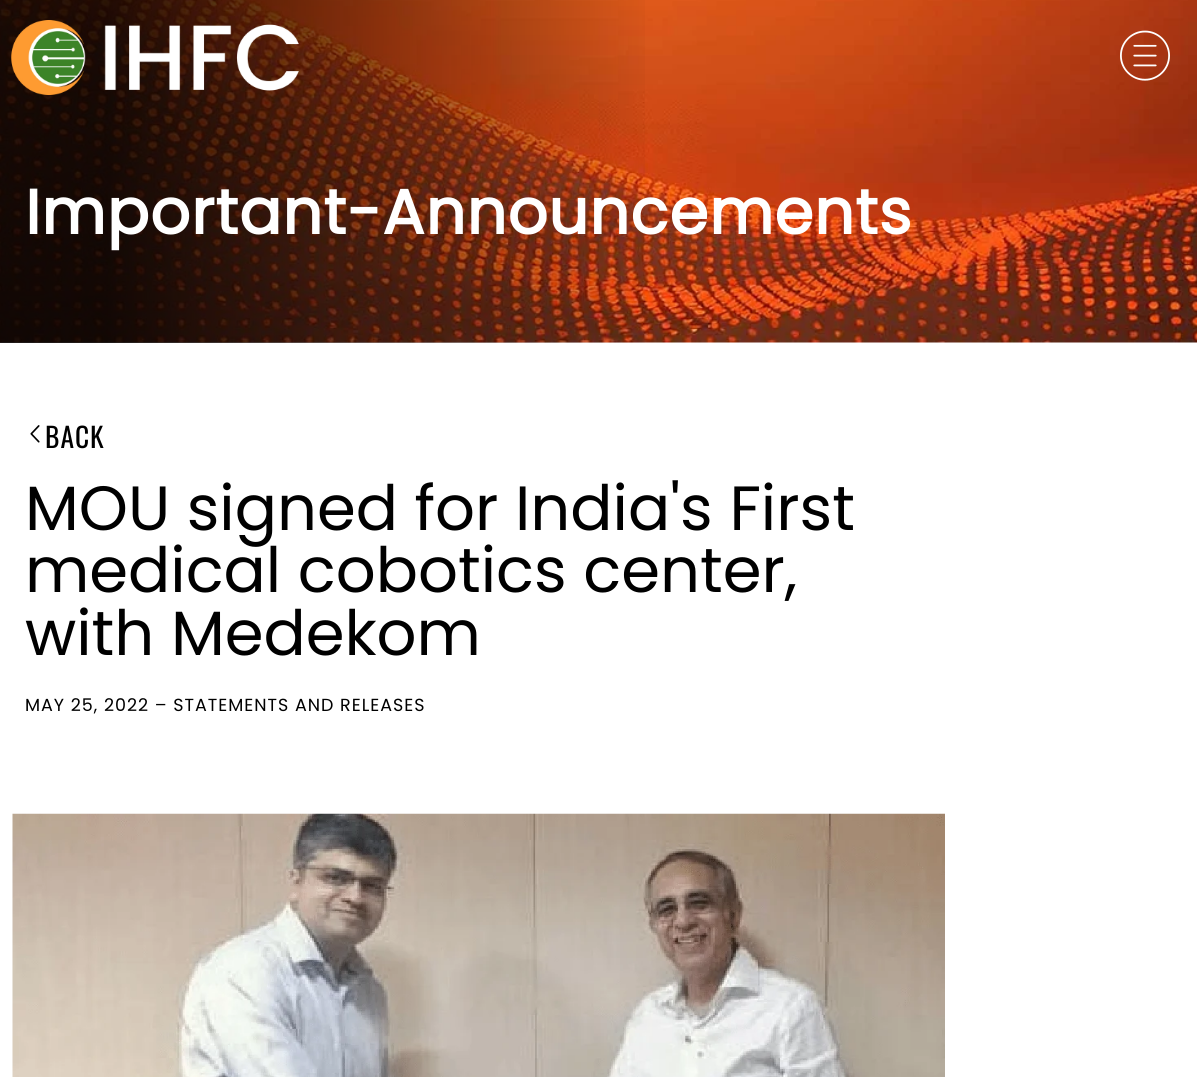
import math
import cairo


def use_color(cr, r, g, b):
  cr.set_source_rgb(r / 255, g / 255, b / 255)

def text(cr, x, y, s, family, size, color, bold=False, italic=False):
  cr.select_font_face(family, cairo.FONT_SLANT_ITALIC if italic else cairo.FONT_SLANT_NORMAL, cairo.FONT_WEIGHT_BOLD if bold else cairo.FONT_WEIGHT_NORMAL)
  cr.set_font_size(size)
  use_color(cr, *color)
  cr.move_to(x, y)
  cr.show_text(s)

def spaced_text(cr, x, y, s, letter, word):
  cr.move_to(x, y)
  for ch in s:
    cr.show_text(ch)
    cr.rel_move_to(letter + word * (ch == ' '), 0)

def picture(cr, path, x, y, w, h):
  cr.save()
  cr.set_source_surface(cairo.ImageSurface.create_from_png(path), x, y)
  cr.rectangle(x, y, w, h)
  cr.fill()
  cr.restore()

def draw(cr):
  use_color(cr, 255, 255, 255)
  cr.paint()
  picture(cr, "img_03.png", 0, 0, 1197, 343)
  gradient = cairo.LinearGradient(0, 135, 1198, 135)
  gradient.add_color_stop_rgba(0.09, 0, 0, 0, 0.83)
  gradient.add_color_stop_rgba(0.55, 0, 0, 0, 0)
  cr.set_source(gradient)
  cr.rectangle(0, 0, 645, 343)
  cr.fill()
  picture(cr, "img_01.png", 11, 20, 288, 75)
  picture(cr, "img_02.png", 1120, 30, 50, 51)
  picture(cr, "img_04.png", 30, 425, 10, 18)
  picture(cr, "img_05.png", 12, 813, 933, 264)
  cr.select_font_face("Poppins", cairo.FONT_SLANT_NORMAL, cairo.FONT_WEIGHT_BOLD)
  cr.set_font_size(62.5)
  use_color(cr, 255, 255, 255)
  spaced_text(cr, 25, 234, "Important-Announcements", 1, 0)
  cr.select_font_face("Oswald")
  cr.set_font_size(27.5)
  use_color(cr, 0, 0, 0)
  spaced_text(cr, 45, 448, "BACK", 1, 0)
  text(cr, 25, 530, "MOU signed for India's First", "Poppins", 62.5, (0, 0, 0))
  text(cr, 25, 592, "medical cobotics center,", "Poppins", 62.5, (0, 0, 0))
  text(cr, 25, 655, "with Medekom", "Poppins", 62.5, (0, 0, 0))
  cr.set_font_size(17.5)
  spaced_text(cr, 25, 711, "MAY 25, 2022 – STATEMENTS AND RELEASES", 1, 0)


surface = cairo.ImageSurface(cairo.FORMAT_RGB24, 1197, 1077)
cr = cairo.Context(surface)
options = cairo.FontOptions()
options.set_hint_metrics(cairo.HINT_METRICS_OFF)
options.set_hint_style(cairo.HINT_STYLE_NONE)
cr.set_font_options(options)
cr.set_miter_limit(4)
draw(cr)
surface.write_to_png("out.png")
